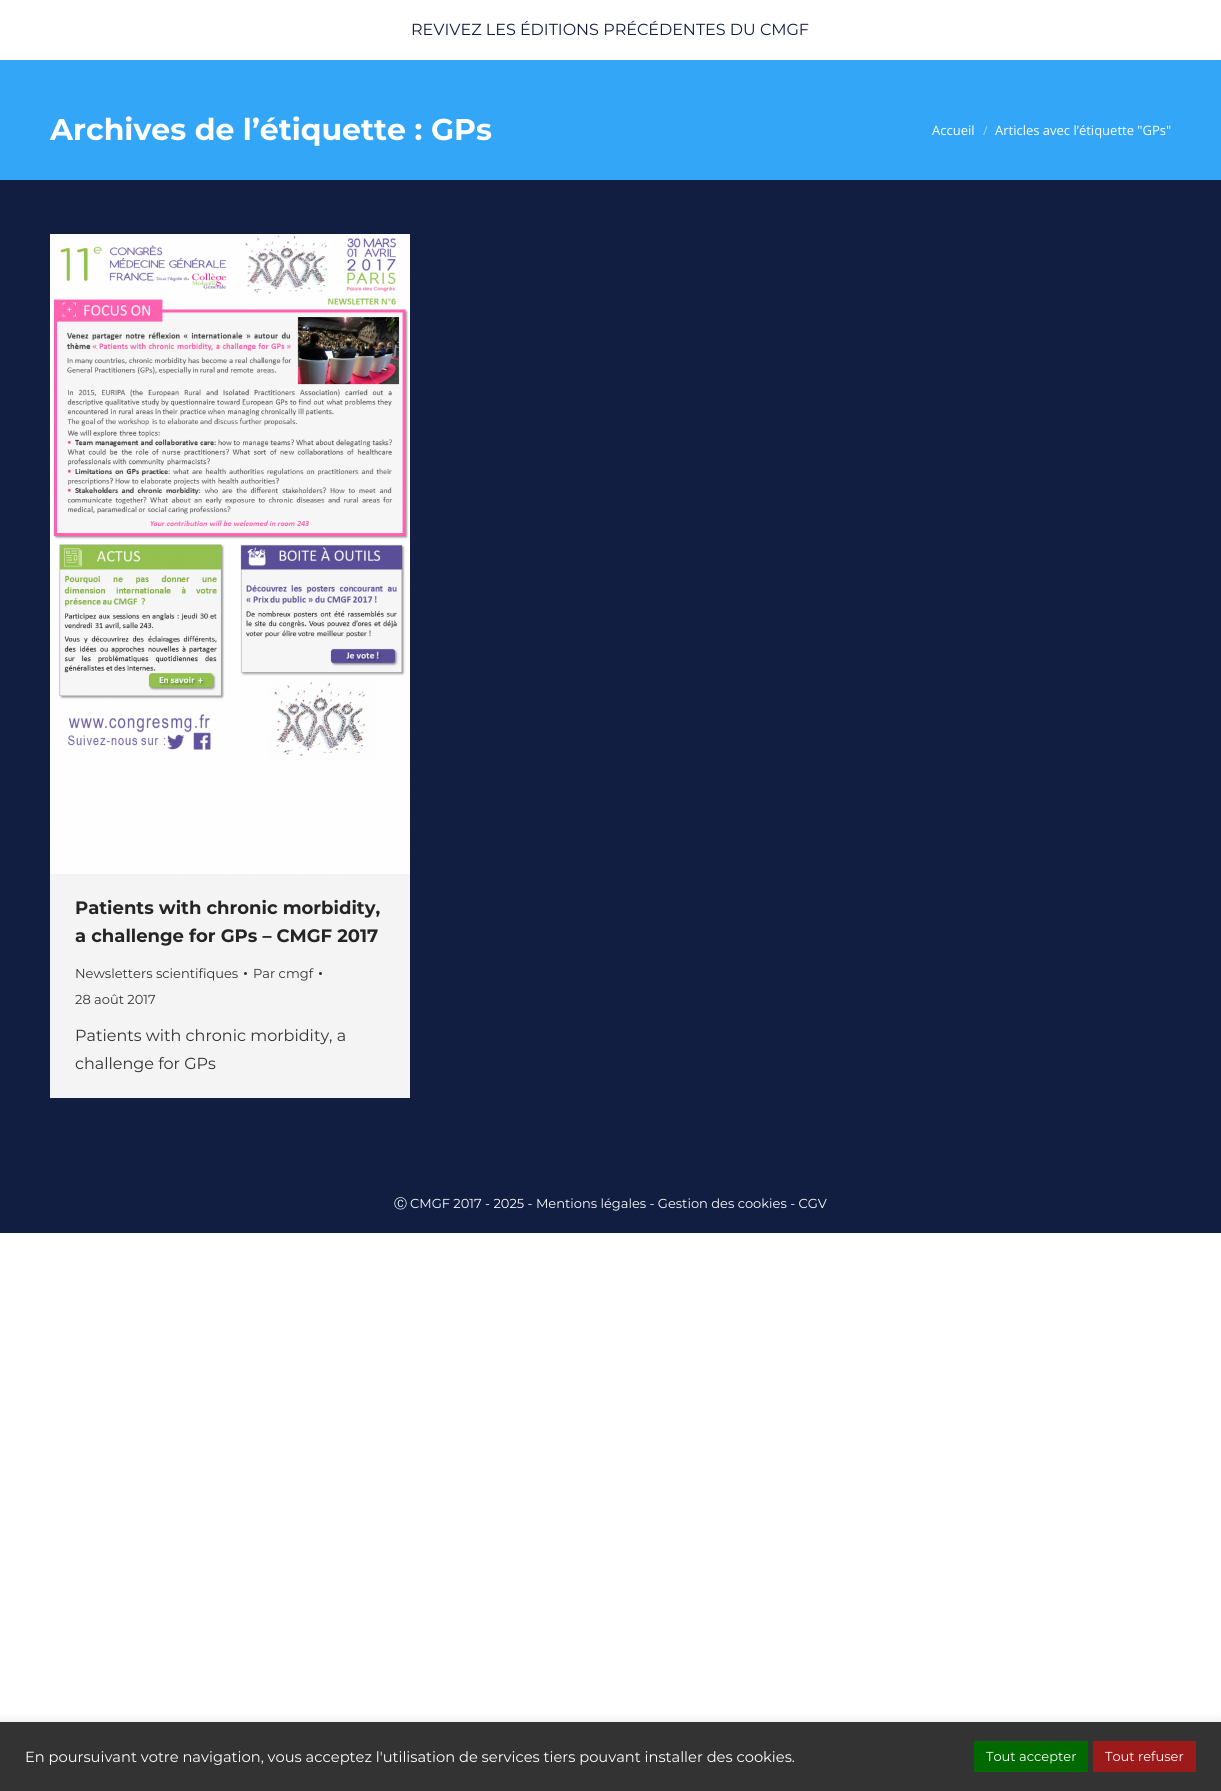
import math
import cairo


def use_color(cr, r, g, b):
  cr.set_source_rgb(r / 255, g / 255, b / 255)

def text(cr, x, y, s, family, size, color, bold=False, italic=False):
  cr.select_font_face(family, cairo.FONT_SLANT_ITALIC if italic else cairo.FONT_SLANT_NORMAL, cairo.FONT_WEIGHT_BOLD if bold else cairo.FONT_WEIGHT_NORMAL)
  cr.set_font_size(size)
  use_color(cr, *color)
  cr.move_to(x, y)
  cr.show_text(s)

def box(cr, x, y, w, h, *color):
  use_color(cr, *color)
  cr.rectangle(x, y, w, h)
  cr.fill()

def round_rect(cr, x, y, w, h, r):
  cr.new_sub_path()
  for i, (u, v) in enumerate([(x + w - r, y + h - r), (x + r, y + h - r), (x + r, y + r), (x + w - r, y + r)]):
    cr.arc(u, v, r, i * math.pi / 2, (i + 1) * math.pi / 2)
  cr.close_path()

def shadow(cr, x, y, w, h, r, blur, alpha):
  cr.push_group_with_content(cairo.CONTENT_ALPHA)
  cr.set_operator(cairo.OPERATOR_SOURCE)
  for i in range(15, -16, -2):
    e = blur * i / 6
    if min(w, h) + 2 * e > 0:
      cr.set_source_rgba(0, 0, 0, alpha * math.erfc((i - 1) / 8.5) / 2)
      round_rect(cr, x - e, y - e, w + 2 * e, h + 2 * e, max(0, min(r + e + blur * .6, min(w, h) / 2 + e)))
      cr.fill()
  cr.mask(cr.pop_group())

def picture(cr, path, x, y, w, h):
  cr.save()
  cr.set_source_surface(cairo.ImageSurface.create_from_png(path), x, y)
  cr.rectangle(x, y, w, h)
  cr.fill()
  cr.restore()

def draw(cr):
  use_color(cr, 255, 255, 255)
  cr.paint()
  box(cr, 0, 180, 1221, 1053, 17, 30, 65)
  box(cr, 0, 60, 1221, 120, 52, 166, 247)
  box(cr, 50, 874, 360, 224, 244, 244, 244)
  picture(cr, "img_01.png", 50, 234, 360, 640)
  use_color(cr, 51, 51, 51)
  cr.arc(245.5, 973.5, 1.5, 0, 2 * math.pi)
  cr.fill()
  cr.arc(320.5, 973.5, 1.5, 0, 2 * math.pi)
  cr.fill()
  use_color(cr, 172, 171, 171)
  shadow(cr, 0, 1721, 1221, 69, 0, 5, 0.3)
  box(cr, 0, 1722, 1221, 69, 51, 51, 51)
  box(cr, 974, 1741, 114, 31, 0, 105, 0)
  box(cr, 1093, 1741, 103, 31, 156, 26, 26)
  text(cr, 411, 35, "REVIVEZ LES ÉDITIONS PRÉCÉDENTES DU CMGF", "Montserrat", 16, (17, 30, 65))
  text(cr, 50, 140, "Archives de l’étiquette : GPs", "Montserrat", 30, (255, 255, 255), bold=True)
  text(cr, 932, 135, "Accueil", "Open Sans", 13, (255, 255, 255))
  text(cr, 983, 135, "/", "Open Sans", 13, (154, 211, 251))
  text(cr, 995, 135, "Articles avec l’étiquette \"GPs\"", "Open Sans", 13, (255, 255, 255))
  text(cr, 75, 914, "Patients with chronic morbidity,", "Montserrat", 18, (37, 37, 37), bold=True)
  text(cr, 75, 942, "a challenge for GPs – CMGF 2017", "Montserrat", 18, (37, 37, 37), bold=True)
  text(cr, 75, 978, "Newsletters scientifiques", "Montserrat", 13, (51, 51, 51))
  text(cr, 253, 978, "Par cmgf", "Montserrat", 13, (51, 51, 51))
  text(cr, 75, 1004, "28 août 2017", "Montserrat", 13, (51, 51, 51))
  text(cr, 75, 1041, "Patients with chronic morbidity, a", "Montserrat", 16, (51, 51, 51))
  text(cr, 75, 1069, "challenge for GPs", "Montserrat", 16, (51, 51, 51))
  text(cr, 394, 1208, "Ⓒ", "WenQuanYi Zen Hei Medium", 13, (255, 255, 255))
  text(cr, 410, 1208, "CMGF 2017 - 2025 - Mentions légales - Gestion des cookies - CGV", "Montserrat", 13, (255, 255, 255))
  text(cr, 25, 1762, "En poursuivant votre navigation, vous acceptez l'utilisation de services tiers pouvant installer des cookies.", "Montserrat", 14.67, (255, 255, 255))
  text(cr, 986, 1761, "Tout accepter", "Montserrat", 13, (255, 255, 255))
  text(cr, 1105, 1761, "Tout refuser", "Montserrat", 13, (255, 255, 255))


surface = cairo.ImageSurface(cairo.FORMAT_RGB24, 1221, 1791)
cr = cairo.Context(surface)
options = cairo.FontOptions()
options.set_hint_metrics(cairo.HINT_METRICS_OFF)
options.set_hint_style(cairo.HINT_STYLE_NONE)
cr.set_font_options(options)
cr.set_miter_limit(4)
draw(cr)
surface.write_to_png("out.png")
